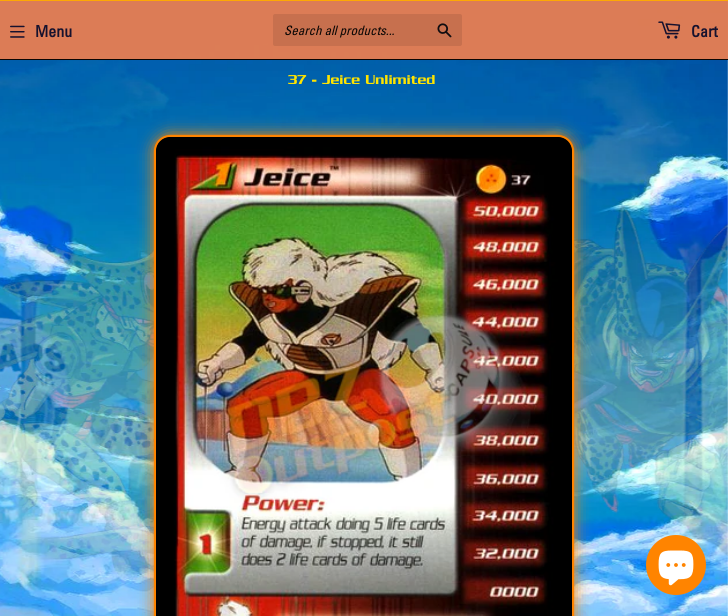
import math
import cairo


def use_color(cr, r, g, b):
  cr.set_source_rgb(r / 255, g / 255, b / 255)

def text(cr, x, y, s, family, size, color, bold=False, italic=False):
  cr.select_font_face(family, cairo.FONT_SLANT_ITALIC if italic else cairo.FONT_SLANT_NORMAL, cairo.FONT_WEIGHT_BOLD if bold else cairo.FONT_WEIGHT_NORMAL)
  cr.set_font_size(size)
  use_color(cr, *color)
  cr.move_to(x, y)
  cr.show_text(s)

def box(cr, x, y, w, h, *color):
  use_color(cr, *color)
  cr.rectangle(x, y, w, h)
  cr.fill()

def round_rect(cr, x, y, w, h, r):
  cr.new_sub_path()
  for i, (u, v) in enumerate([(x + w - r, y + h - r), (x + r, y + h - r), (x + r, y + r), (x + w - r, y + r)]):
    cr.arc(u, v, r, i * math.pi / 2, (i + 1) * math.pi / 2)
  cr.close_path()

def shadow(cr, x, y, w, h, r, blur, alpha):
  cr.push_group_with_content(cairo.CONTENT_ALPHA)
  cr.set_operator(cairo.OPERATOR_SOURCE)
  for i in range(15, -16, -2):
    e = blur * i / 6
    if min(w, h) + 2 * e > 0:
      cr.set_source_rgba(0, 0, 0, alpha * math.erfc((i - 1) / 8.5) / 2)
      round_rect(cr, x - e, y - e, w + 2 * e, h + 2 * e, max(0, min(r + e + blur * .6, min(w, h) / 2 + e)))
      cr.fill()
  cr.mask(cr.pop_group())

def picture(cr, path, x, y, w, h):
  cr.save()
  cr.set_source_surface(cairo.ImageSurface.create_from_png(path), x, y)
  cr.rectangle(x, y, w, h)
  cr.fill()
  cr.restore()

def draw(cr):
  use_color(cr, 255, 255, 255)
  cr.paint()
  picture(cr, "img_01.png", 0, 1, 728, 615)
  cr.set_source_rgba(0.906, 0.494, 0.322, 0.95)
  cr.rectangle(0, 1, 728, 58)
  cr.fill()
  box(cr, 0, 0, 728, 1, 253, 168, 4)
  box(cr, 0, 59, 728, 1, 11, 6, 4)
  picture(cr, "img_02.png", 10, 25, 15, 13)
  cr.save()
  round_rect(cr, 273, 14, 189, 32, 1)
  cr.clip()
  use_color(cr, 199, 112, 78)
  round_rect(cr, 273, 14, 189, 32, 2)
  cr.fill()
  cr.restore()
  picture(cr, "img_03.png", 437, 23, 15, 15)
  picture(cr, "img_04.png", 658, 21, 23, 18)
  use_color(cr, 255, 132, 0)
  shadow(cr, 154, 135, 420, 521, 16, 8, 1)
  use_color(cr, 0, 0, 0)
  round_rect(cr, 155, 136, 418, 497, 15)
  cr.fill_preserve()
  use_color(cr, 255, 132, 0)
  cr.stroke()
  cr.save()
  cr.set_fill_rule(cairo.FILL_RULE_EVEN_ODD)
  cr.new_path()
  cr.move_to(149, 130)
  cr.line_to(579, 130)
  cr.line_to(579, 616)
  cr.line_to(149, 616)
  cr.close_path()
  cr.move_to(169, 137)
  cr.line_to(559, 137)
  cr.curve_to(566, 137, 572, 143, 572, 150)
  cr.line_to(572, 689)
  cr.curve_to(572, 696, 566, 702, 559, 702)
  cr.line_to(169, 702)
  cr.curve_to(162, 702, 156, 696, 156, 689)
  cr.line_to(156, 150)
  cr.curve_to(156, 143, 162, 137, 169, 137)
  cr.close_path()
  cr.clip()
  use_color(cr, 255, 132, 0)
  shadow(cr, 156, 137, 416, 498, 13, 2, 1)
  cr.restore()
  picture(cr, "img_05.png", 156, 137, 416, 479)
  cr.arc(676, 565, 30, 0, 2 * math.pi)
  cr.fill()
  picture(cr, "img_06.png", 658, 550, 36, 36)
  text(cr, 35, 37, "Menu", "Univers", 16, (22, 18, 46), bold=True)
  text(cr, 284, 35, "Search all products...", "Univers", 13, (10, 6, 4), italic=True)
  text(cr, 691, 37, "Cart", "Univers", 16, (22, 18, 46), bold=True)
  text(cr, 288, 84, "37 - Jeice Unlimited", "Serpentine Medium", 14, (255, 228, 0))


surface = cairo.ImageSurface(cairo.FORMAT_RGB24, 728, 616)
cr = cairo.Context(surface)
options = cairo.FontOptions()
options.set_hint_metrics(cairo.HINT_METRICS_OFF)
options.set_hint_style(cairo.HINT_STYLE_NONE)
cr.set_font_options(options)
cr.set_miter_limit(4)
draw(cr)
surface.write_to_png("out.png")
